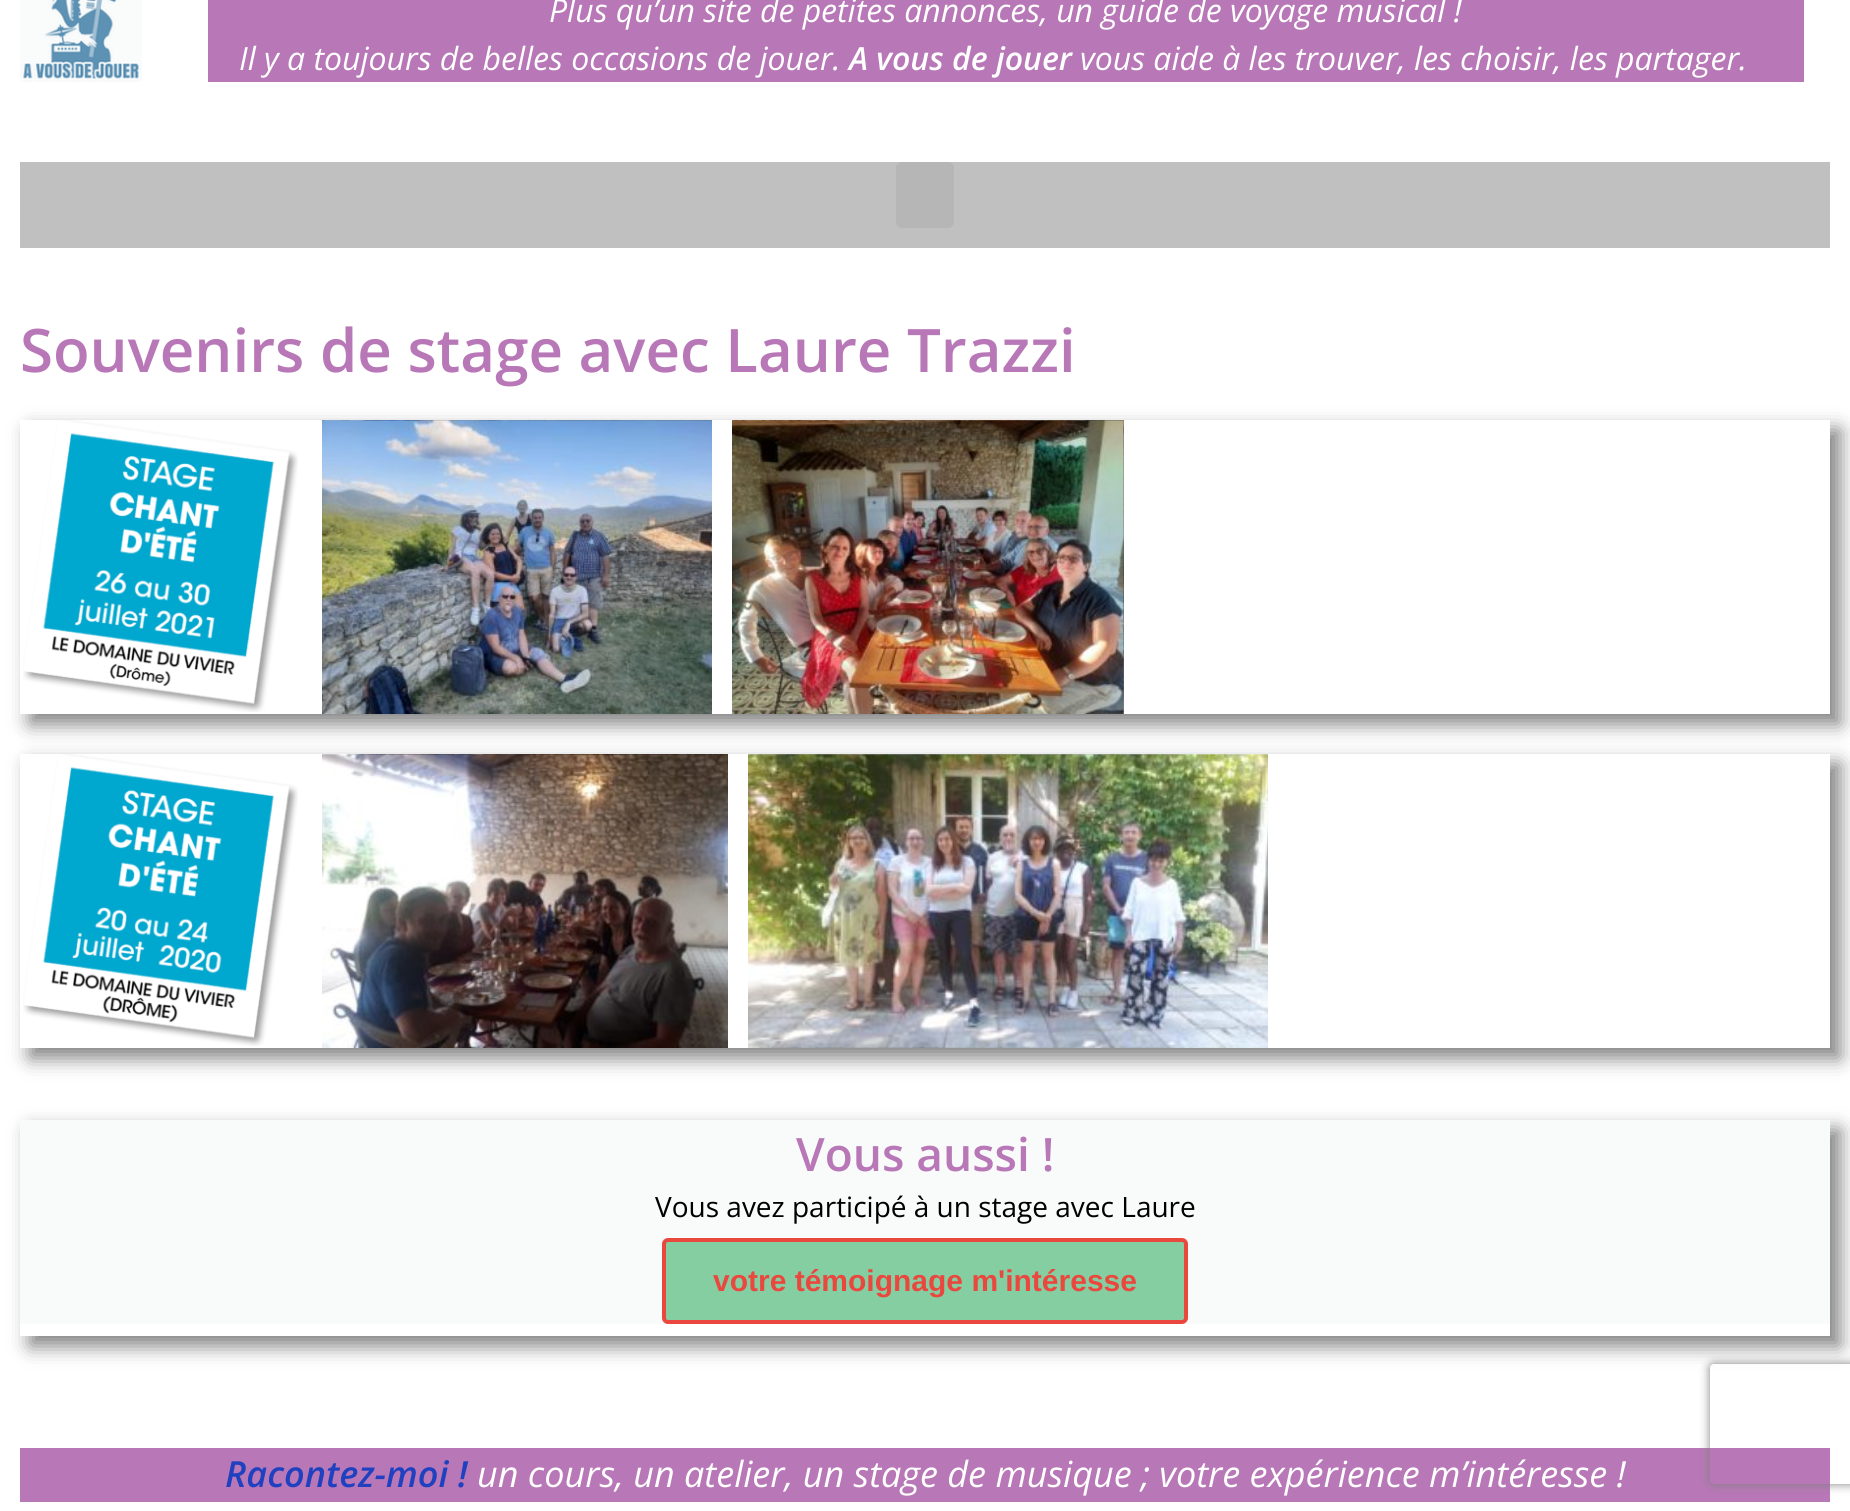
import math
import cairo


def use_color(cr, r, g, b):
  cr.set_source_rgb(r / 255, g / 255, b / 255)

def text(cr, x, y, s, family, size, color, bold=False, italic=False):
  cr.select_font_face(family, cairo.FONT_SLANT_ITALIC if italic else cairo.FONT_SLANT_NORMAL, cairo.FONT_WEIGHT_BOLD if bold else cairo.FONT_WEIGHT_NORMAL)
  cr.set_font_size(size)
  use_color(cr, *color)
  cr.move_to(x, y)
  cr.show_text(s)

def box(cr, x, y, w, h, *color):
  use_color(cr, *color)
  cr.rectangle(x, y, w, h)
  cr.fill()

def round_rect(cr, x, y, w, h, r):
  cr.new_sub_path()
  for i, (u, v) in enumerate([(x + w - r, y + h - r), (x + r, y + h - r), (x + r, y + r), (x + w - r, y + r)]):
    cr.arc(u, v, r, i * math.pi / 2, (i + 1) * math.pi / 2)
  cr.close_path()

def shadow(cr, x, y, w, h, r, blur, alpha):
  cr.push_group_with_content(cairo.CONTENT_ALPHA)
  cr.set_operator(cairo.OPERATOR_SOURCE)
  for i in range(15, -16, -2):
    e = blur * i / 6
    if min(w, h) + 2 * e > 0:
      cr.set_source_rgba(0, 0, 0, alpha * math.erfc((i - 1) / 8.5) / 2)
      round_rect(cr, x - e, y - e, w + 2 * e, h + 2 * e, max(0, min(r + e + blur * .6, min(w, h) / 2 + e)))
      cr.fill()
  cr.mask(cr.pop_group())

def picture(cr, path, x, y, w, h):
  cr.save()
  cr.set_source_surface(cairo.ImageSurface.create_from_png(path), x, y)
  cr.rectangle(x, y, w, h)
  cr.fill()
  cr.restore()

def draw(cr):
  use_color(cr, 255, 255, 255)
  cr.paint()
  picture(cr, "img_01.png", 20, 0, 122, 82)
  box(cr, 208, 0, 1596, 82, 184, 119, 183)
  box(cr, 20, 162, 1810, 86, 192, 192, 192)
  use_color(cr, 182, 182, 182)
  round_rect(cr, 896, 162, 58, 66, 6)
  cr.fill()
  cr.save()
  cr.set_fill_rule(cairo.FILL_RULE_EVEN_ODD)
  cr.new_path()
  cr.move_to(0, 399)
  cr.line_to(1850, 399)
  cr.line_to(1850, 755)
  cr.line_to(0, 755)
  cr.close_path()
  cr.move_to(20, 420)
  cr.line_to(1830, 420)
  cr.line_to(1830, 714)
  cr.line_to(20, 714)
  cr.close_path()
  cr.clip()
  use_color(cr, 0, 0, 0)
  shadow(cr, 30, 430, 1810, 294, 0, 10, 0.5)
  cr.restore()
  picture(cr, "img_02.png", 23, 420, 275, 292)
  picture(cr, "img_03.png", 322, 420, 390, 294)
  picture(cr, "img_04.png", 732, 420, 392, 294)
  cr.save()
  cr.set_fill_rule(cairo.FILL_RULE_EVEN_ODD)
  cr.new_path()
  cr.move_to(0, 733)
  cr.line_to(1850, 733)
  cr.line_to(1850, 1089)
  cr.line_to(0, 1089)
  cr.close_path()
  cr.move_to(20, 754)
  cr.line_to(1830, 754)
  cr.line_to(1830, 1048)
  cr.line_to(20, 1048)
  cr.close_path()
  cr.clip()
  use_color(cr, 0, 0, 0)
  shadow(cr, 30, 764, 1810, 294, 0, 10, 0.5)
  cr.restore()
  picture(cr, "img_05.png", 23, 754, 275, 292)
  picture(cr, "img_06.png", 322, 754, 406, 294)
  picture(cr, "img_07.png", 748, 754, 520, 294)
  cr.save()
  cr.set_fill_rule(cairo.FILL_RULE_EVEN_ODD)
  cr.new_path()
  cr.move_to(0, 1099)
  cr.line_to(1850, 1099)
  cr.line_to(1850, 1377)
  cr.line_to(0, 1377)
  cr.close_path()
  cr.move_to(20, 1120)
  cr.line_to(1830, 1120)
  cr.line_to(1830, 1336)
  cr.line_to(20, 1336)
  cr.close_path()
  cr.clip()
  use_color(cr, 0, 0, 0)
  shadow(cr, 30, 1130, 1810, 216, 0, 10, 0.5)
  cr.restore()
  box(cr, 20, 1120, 1810, 204, 249, 250, 250)
  use_color(cr, 133, 206, 161)
  round_rect(cr, 664, 1240, 522, 82, 4)
  cr.fill_preserve()
  use_color(cr, 234, 71, 63)
  cr.set_line_width(4)
  cr.stroke()
  box(cr, 20, 1448, 1810, 54, 184, 119, 183)
  cr.save()
  cr.set_fill_rule(cairo.FILL_RULE_EVEN_ODD)
  cr.new_path()
  cr.move_to(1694, 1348)
  cr.line_to(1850, 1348)
  cr.line_to(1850, 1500)
  cr.line_to(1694, 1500)
  cr.close_path()
  cr.move_to(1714, 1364)
  cr.line_to(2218, 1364)
  cr.curve_to(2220, 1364, 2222, 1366, 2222, 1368)
  cr.line_to(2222, 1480)
  cr.curve_to(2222, 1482, 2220, 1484, 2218, 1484)
  cr.line_to(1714, 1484)
  cr.curve_to(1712, 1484, 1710, 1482, 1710, 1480)
  cr.line_to(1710, 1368)
  cr.curve_to(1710, 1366, 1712, 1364, 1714, 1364)
  cr.close_path()
  cr.clip()
  use_color(cr, 128, 128, 128)
  shadow(cr, 1710, 1364, 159, 120, 4, 5, 1)
  cr.restore()
  text(cr, 549, 22, "Plus qu’un site de petites annonces, un guide de voyage musical !", "Open Sans", 32, (255, 255, 255), italic=True)
  text(cr, 239, 70, "Il y a toujours de belles occasions de jouer.", "Open Sans", 32, (255, 255, 255), italic=True)
  text(cr, 849, 70, "A vous de jouer", "Open Sans SemiBold", 32, (255, 255, 255), italic=True)
  text(cr, 1080, 70, "vous aide à les trouver, les choisir, les partager.", "Open Sans", 32, (255, 255, 255), italic=True)
  text(cr, 20, 372, "Souvenirs de stage avec Laure Trazzi", "Open Sans SemiBold", 60, (184, 119, 183))
  text(cr, 796, 1171, "Vous aussi !", "Open Sans SemiBold", 46, (184, 119, 183))
  text(cr, 655, 1217, "Vous avez participé à un stage avec Laure", "Open Sans", 28, (0, 0, 0))
  text(cr, 713, 1291, "votre témoignage m'intéresse", "Liberation Sans", 30, (234, 71, 63), bold=True)
  text(cr, 225, 1487, "Racontez-moi !", "Open Sans SemiBold", 36, (31, 65, 191), italic=True)
  text(cr, 477, 1487, "un cours, un atelier, un stage de musique ; votre expérience m’intéresse !", "Open Sans", 36, (255, 255, 255), italic=True)


surface = cairo.ImageSurface(cairo.FORMAT_RGB24, 1850, 1511)
cr = cairo.Context(surface)
options = cairo.FontOptions()
options.set_hint_metrics(cairo.HINT_METRICS_OFF)
options.set_hint_style(cairo.HINT_STYLE_NONE)
cr.set_font_options(options)
cr.set_miter_limit(4)
draw(cr)
surface.write_to_png("out.png")
